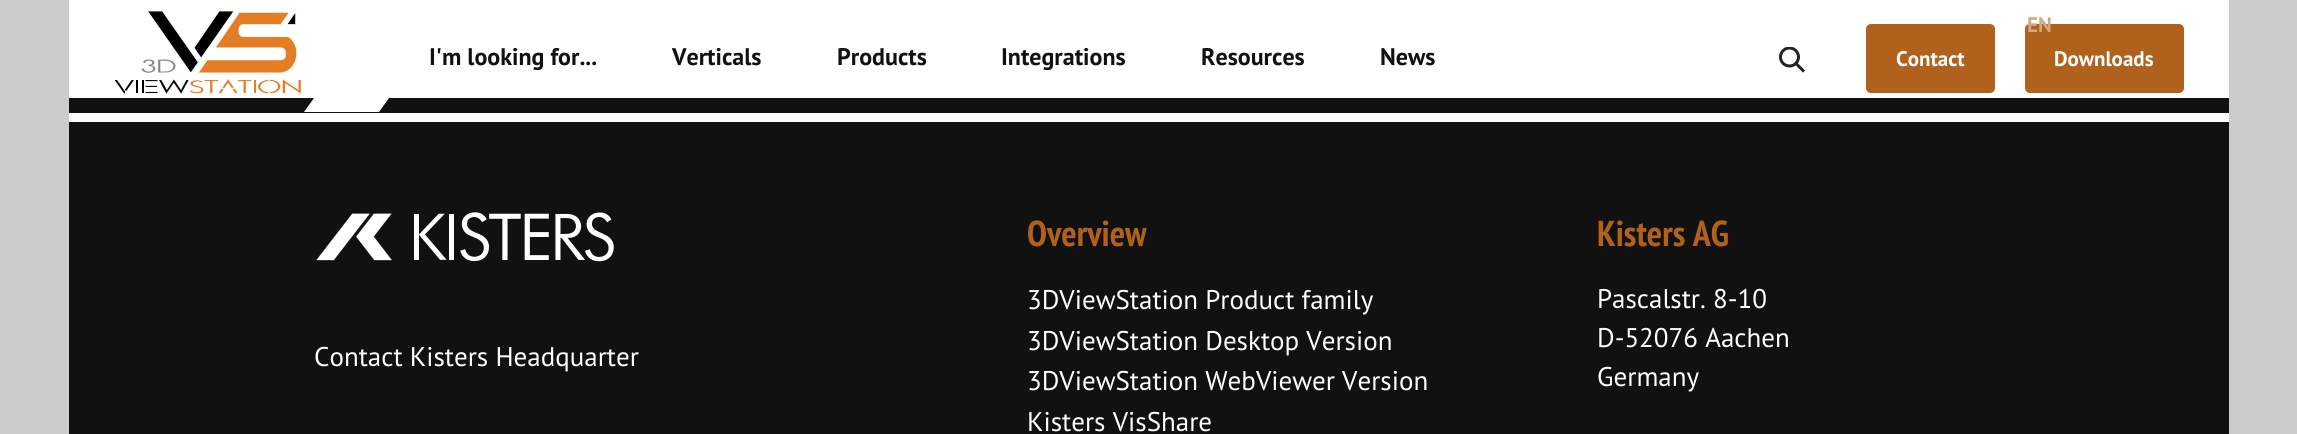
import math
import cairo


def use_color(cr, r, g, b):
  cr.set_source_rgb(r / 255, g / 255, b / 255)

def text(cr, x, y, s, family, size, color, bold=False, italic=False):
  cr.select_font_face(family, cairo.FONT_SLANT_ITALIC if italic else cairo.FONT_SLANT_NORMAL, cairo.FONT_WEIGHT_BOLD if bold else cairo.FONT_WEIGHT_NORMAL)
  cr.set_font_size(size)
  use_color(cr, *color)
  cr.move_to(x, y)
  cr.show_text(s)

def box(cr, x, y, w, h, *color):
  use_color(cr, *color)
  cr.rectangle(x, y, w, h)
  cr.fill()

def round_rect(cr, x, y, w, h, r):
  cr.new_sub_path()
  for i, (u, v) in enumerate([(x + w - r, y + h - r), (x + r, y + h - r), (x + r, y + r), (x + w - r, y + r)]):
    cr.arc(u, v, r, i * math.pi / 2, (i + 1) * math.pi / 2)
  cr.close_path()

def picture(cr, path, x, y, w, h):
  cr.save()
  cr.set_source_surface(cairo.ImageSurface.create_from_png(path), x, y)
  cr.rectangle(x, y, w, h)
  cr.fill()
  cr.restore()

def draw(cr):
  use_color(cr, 204, 204, 204)
  cr.paint()
  box(cr, 69, 113, 2160, 9, 255, 255, 255)
  box(cr, 69, 0, 2160, 98, 255, 255, 255)
  box(cr, 69, 98, 2160, 15, 17, 17, 18)
  picture(cr, "img_01.png", 114, 11, 187, 83)
  cr.save()
  cr.rectangle(1779, 47, 27, 27)
  cr.clip()
  cr.arc(1789.5, 57, 9, 0, 2 * math.pi)
  use_color(cr, 34, 34, 34)
  cr.set_line_width(3)
  cr.stroke()
  cr.restore()
  cr.new_path()
  cr.move_to(1796, 63.5)
  cr.line_to(1803, 70.5)
  use_color(cr, 34, 34, 34)
  cr.set_line_width(3)
  cr.set_line_cap(cairo.LINE_CAP_SQUARE)
  cr.stroke()
  use_color(cr, 176, 97, 28)
  round_rect(cr, 1866, 24, 129, 69, 5)
  cr.fill()
  round_rect(cr, 2025, 24, 159, 69, 5)
  cr.fill()
  use_color(cr, 255, 255, 255)
  cr.new_path()
  cr.move_to(314, 98)
  cr.line_to(389, 98)
  cr.line_to(379, 112)
  cr.line_to(304, 112)
  cr.close_path()
  cr.fill()
  box(cr, 69, 122, 2160, 312, 17, 17, 18)
  picture(cr, "img_02.png", 316, 212, 298, 50)
  text(cr, 2027, 32, "EN", "PT Sans", 21, (211, 167, 129), bold=True)
  text(cr, 429, 65, "I'm looking for...", "PT Sans", 24, (17, 17, 18), bold=True)
  text(cr, 672, 65, "Verticals", "PT Sans", 24, (17, 17, 18), bold=True)
  text(cr, 837, 65, "Products", "PT Sans", 24, (17, 17, 18), bold=True)
  text(cr, 1001, 65, "Integrations", "PT Sans", 24, (17, 17, 18), bold=True)
  text(cr, 1201, 65, "Resources", "PT Sans", 24, (17, 17, 18), bold=True)
  text(cr, 1380, 65, "News", "PT Sans", 24, (17, 17, 18), bold=True)
  text(cr, 1896, 66, "Contact", "PT Sans", 21, (255, 255, 255), bold=True)
  text(cr, 2054, 66, "Downloads", "PT Sans", 21, (255, 255, 255), bold=True)
  text(cr, 314, 366, "Contact Kisters Headquarter", "PT Sans", 27, (255, 255, 255))
  text(cr, 1027, 246, "Overview", "PT Sans Narrow", 36, (176, 97, 28), bold=True)
  text(cr, 1027, 309, "3DViewStation Product family", "PT Sans", 27, (255, 255, 255))
  text(cr, 1027, 350, "3DViewStation Desktop Version", "PT Sans", 27, (255, 255, 255))
  text(cr, 1027, 390, "3DViewStation WebViewer Version", "PT Sans", 27, (255, 255, 255))
  text(cr, 1027, 431, "Kisters VisShare", "PT Sans", 27, (255, 255, 255))
  text(cr, 1597, 246, "Kisters AG", "PT Sans Narrow", 36, (176, 97, 28), bold=True)
  text(cr, 1597, 308, "Pascalstr. 8-10", "PT Sans", 27, (255, 255, 255))
  text(cr, 1597, 347, "D-52076 Aachen", "PT Sans", 27, (255, 255, 255))
  text(cr, 1597, 386, "Germany", "PT Sans", 27, (255, 255, 255))


surface = cairo.ImageSurface(cairo.FORMAT_RGB24, 2297, 434)
cr = cairo.Context(surface)
options = cairo.FontOptions()
options.set_hint_metrics(cairo.HINT_METRICS_OFF)
options.set_hint_style(cairo.HINT_STYLE_NONE)
cr.set_font_options(options)
cr.set_miter_limit(4)
draw(cr)
surface.write_to_png("out.png")
